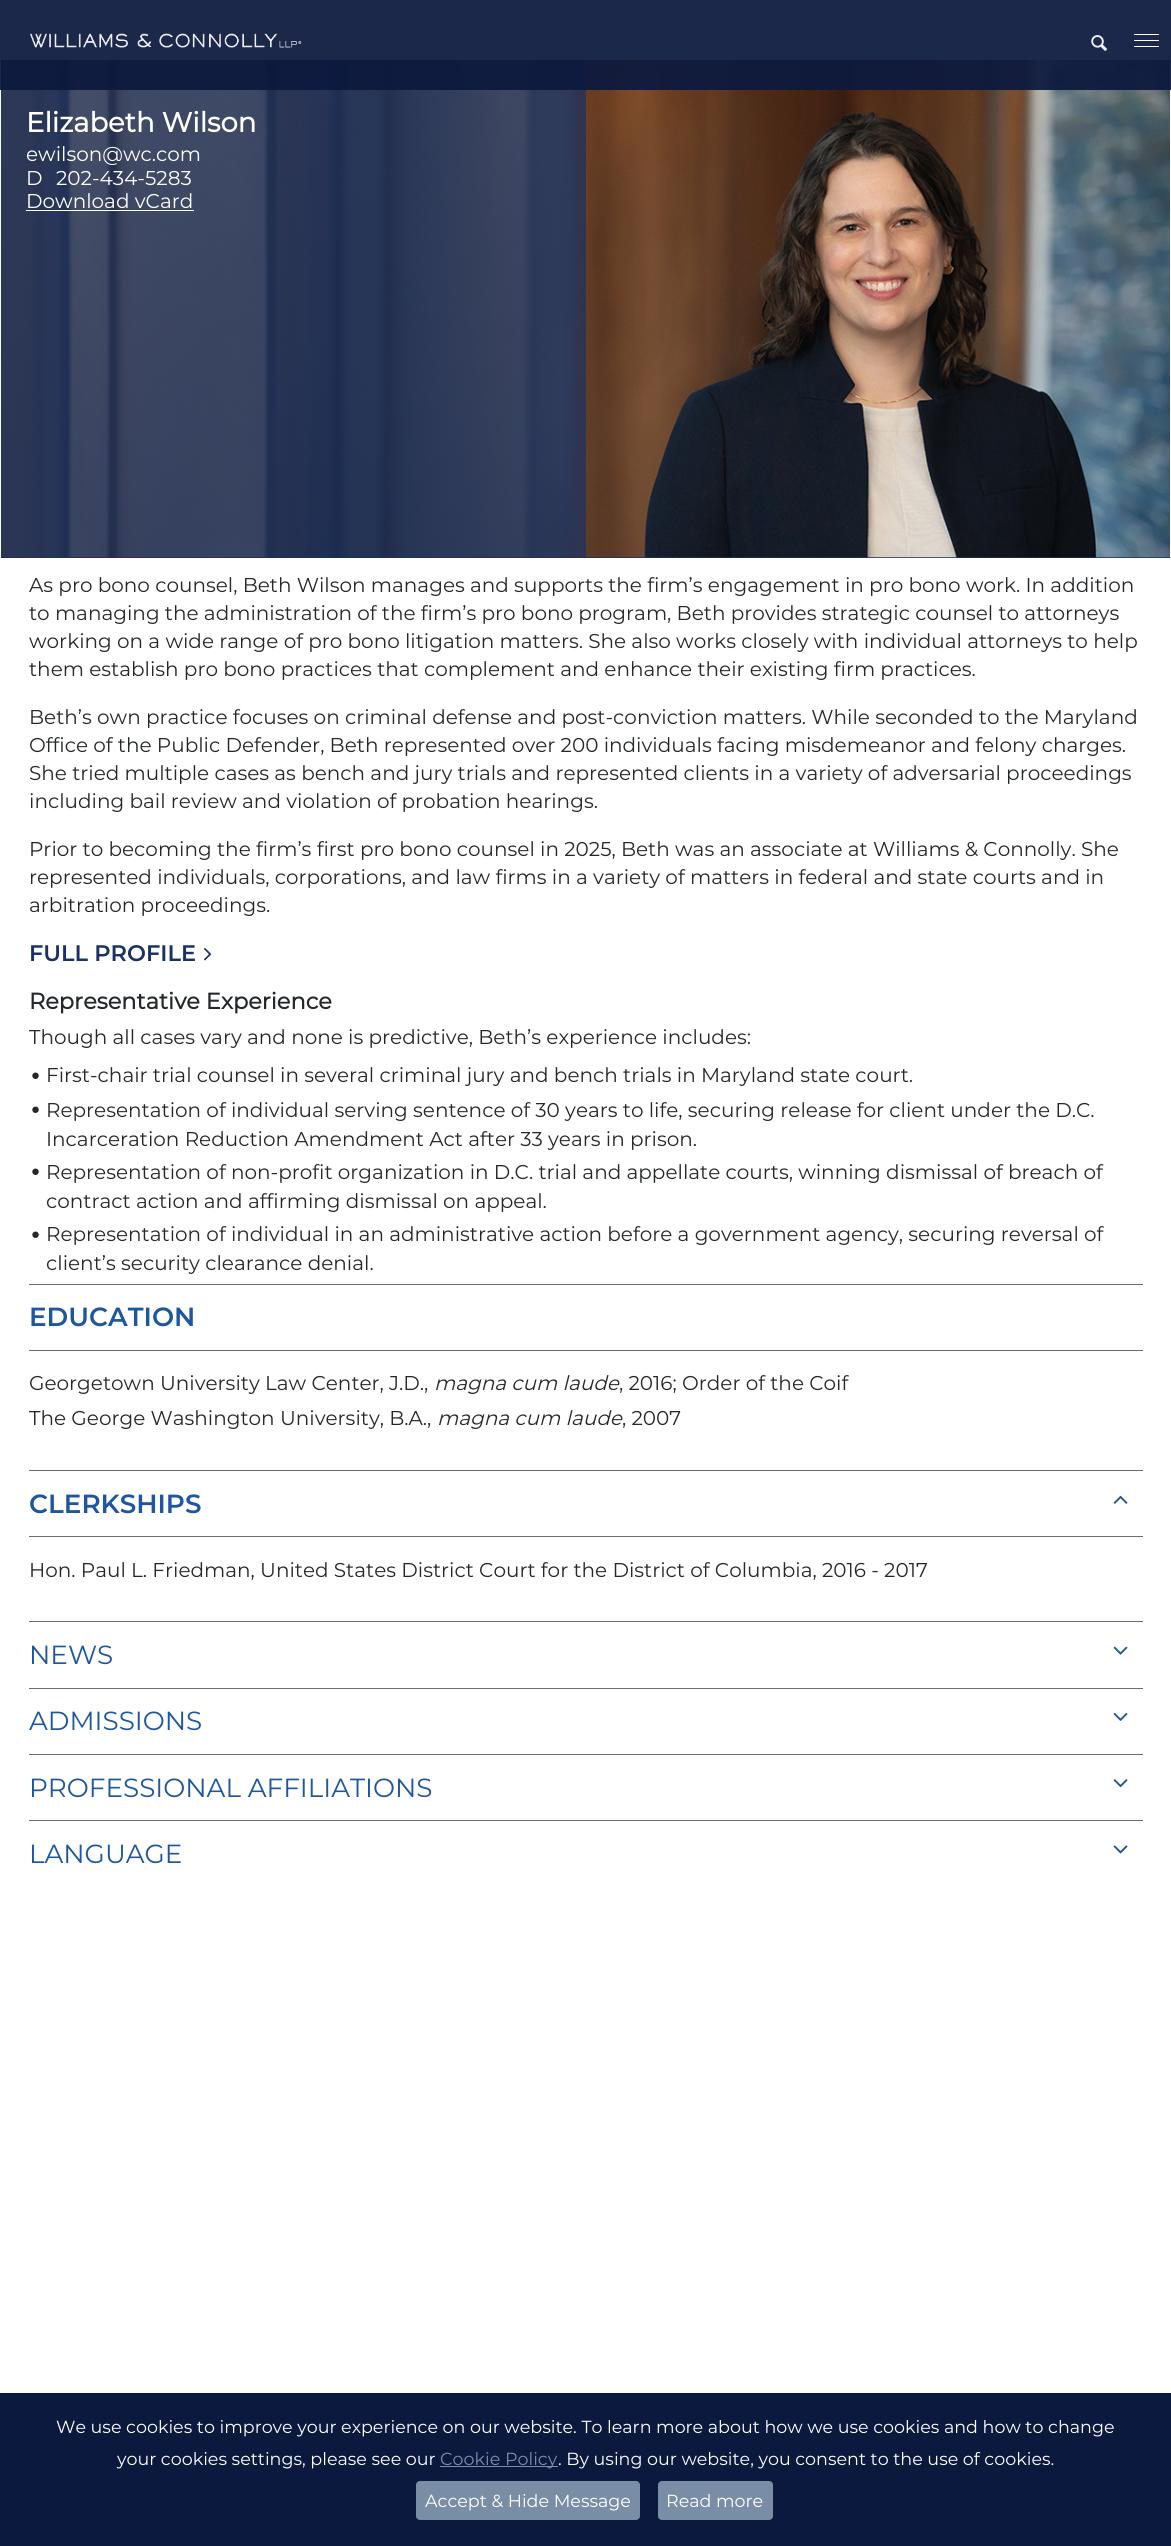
import math
import cairo


def use_color(cr, r, g, b):
  cr.set_source_rgb(r / 255, g / 255, b / 255)

def text(cr, x, y, s, family, size, color, bold=False, italic=False):
  cr.select_font_face(family, cairo.FONT_SLANT_ITALIC if italic else cairo.FONT_SLANT_NORMAL, cairo.FONT_WEIGHT_BOLD if bold else cairo.FONT_WEIGHT_NORMAL)
  cr.set_font_size(size)
  use_color(cr, *color)
  cr.move_to(x, y)
  cr.show_text(s)

def box(cr, x, y, w, h, *color):
  use_color(cr, *color)
  cr.rectangle(x, y, w, h)
  cr.fill()

def round_rect(cr, x, y, w, h, r):
  cr.new_sub_path()
  for i, (u, v) in enumerate([(x + w - r, y + h - r), (x + r, y + h - r), (x + r, y + r), (x + w - r, y + r)]):
    cr.arc(u, v, r, i * math.pi / 2, (i + 1) * math.pi / 2)
  cr.close_path()

def picture(cr, path, x, y, w, h):
  cr.save()
  cr.set_source_surface(cairo.ImageSurface.create_from_png(path), x, y)
  cr.rectangle(x, y, w, h)
  cr.fill()
  cr.restore()

def draw(cr):
  use_color(cr, 255, 255, 255)
  cr.paint()
  box(cr, 1, 60, 1169, 498, 26, 49, 101)
  picture(cr, "img_03.png", 1, 60, 1169, 498)
  cr.set_source_rgba(0.102, 0.192, 0.396, 0.7)
  cr.rectangle(1, 60, 585, 498)
  cr.fill()
  cr.set_source_rgba(0.047, 0.098, 0.243, 0.93)
  cr.rectangle(0, 0, 1171, 90)
  cr.fill()
  picture(cr, "img_01.png", 30, 33, 272, 15)
  picture(cr, "img_02.png", 1091, 35, 16, 16)
  use_color(cr, 255, 255, 255)
  round_rect(cr, 1134, 34, 25, 1, 0.5)
  cr.fill()
  round_rect(cr, 1134, 40, 25, 1, 0.5)
  cr.fill()
  round_rect(cr, 1134, 46, 25, 1, 0.5)
  cr.fill()
  box(cr, 26, 210, 168, 1, 255, 255, 255)
  picture(cr, "img_04.png", 204, 948, 8, 13)
  box(cr, 29, 1284, 1114, 1, 108, 109, 112)
  box(cr, 29, 1350, 1114, 1, 108, 109, 112)
  box(cr, 29, 1470, 1114, 1, 108, 109, 112)
  picture(cr, "img_05.png", 1113, 1495, 15, 9)
  box(cr, 29, 1536, 1114, 1, 108, 109, 112)
  box(cr, 29, 1621, 1114, 1, 108, 109, 112)
  picture(cr, "img_06.png", 1113, 1646, 15, 9)
  box(cr, 29, 1688, 1114, 1, 108, 109, 112)
  picture(cr, "img_07.png", 1113, 1712, 15, 9)
  box(cr, 29, 1754, 1114, 1, 108, 109, 112)
  picture(cr, "img_08.png", 1113, 1779, 15, 9)
  box(cr, 29, 1820, 1114, 1, 108, 109, 112)
  picture(cr, "img_09.png", 1113, 1845, 15, 9)
  box(cr, 0, 2393, 1171, 153, 12, 25, 62)
  box(cr, 440, 2466, 118, 1, 121, 142, 166)
  round_rect(cr, 416, 2481, 224, 39, 4)
  cr.fill()
  round_rect(cr, 658, 2481, 115, 39, 4)
  cr.fill()
  text(cr, 26, 132, "Elizabeth Wilson", "Montserrat", 27.5, (255, 255, 255), bold=True)
  text(cr, 26, 161, "ewilson@wc.com", "Montserrat", 20, (255, 255, 255))
  text(cr, 26, 185, "D", "Montserrat", 20, (255, 255, 255))
  text(cr, 56, 185, "202-434-5283", "Montserrat", 20, (255, 255, 255))
  text(cr, 26, 208, "Download vCard", "Montserrat", 20, (255, 255, 255))
  text(cr, 29, 592, "As pro bono counsel, Beth Wilson manages and supports the firm’s engagement in pro bono work. In addition", "Montserrat", 20, (37, 40, 42))
  text(cr, 29, 620, "to managing the administration of the firm’s pro bono program, Beth provides strategic counsel to attorneys", "Montserrat", 20, (37, 40, 42))
  text(cr, 29, 648, "working on a wide range of pro bono litigation matters. She also works closely with individual attorneys to help", "Montserrat", 20, (37, 40, 42))
  text(cr, 29, 676, "them establish pro bono practices that complement and enhance their existing firm practices.", "Montserrat", 20, (37, 40, 42))
  text(cr, 29, 724, "Beth’s own practice focuses on criminal defense and post-conviction matters. While seconded to the Maryland", "Montserrat", 20, (37, 40, 42))
  text(cr, 29, 752, "Office of the Public Defender, Beth represented over 200 individuals facing misdemeanor and felony charges.", "Montserrat", 20, (37, 40, 42))
  text(cr, 29, 780, "She tried multiple cases as bench and jury trials and represented clients in a variety of adversarial proceedings", "Montserrat", 20, (37, 40, 42))
  text(cr, 29, 808, "including bail review and violation of probation hearings.", "Montserrat", 20, (37, 40, 42))
  text(cr, 29, 856, "Prior to becoming the firm’s first pro bono counsel in 2025, Beth was an associate at Williams & Connolly. She", "Montserrat", 20, (37, 40, 42))
  text(cr, 29, 884, "represented individuals, corporations, and law firms in a variety of matters in federal and state courts and in", "Montserrat", 20, (37, 40, 42))
  text(cr, 29, 912, "arbitration proceedings.", "Montserrat", 20, (37, 40, 42))
  text(cr, 29, 961, "FULL PROFILE", "Montserrat SemiBold", 22.5, (26, 49, 101))
  text(cr, 29, 1009, "Representative Experience", "Montserrat", 22.5, (37, 40, 42), bold=True)
  text(cr, 29, 1044, "Though all cases vary and none is predictive, Beth’s experience includes:", "Montserrat", 20, (37, 40, 42))
  text(cr, 31, 1080, "●", "Liberation Sans", 15, (37, 40, 42))
  text(cr, 46, 1082, "First-chair trial counsel in several criminal jury and bench trials in Maryland state court.", "Montserrat", 20, (37, 40, 42))
  text(cr, 31, 1114, "●", "Liberation Sans", 15, (37, 40, 42))
  text(cr, 46, 1117, "Representation of individual serving sentence of 30 years to life, securing release for client under the D.C.", "Montserrat", 20, (37, 40, 42))
  text(cr, 46, 1146, "Incarceration Reduction Amendment Act after 33 years in prison.", "Montserrat", 20, (37, 40, 42))
  text(cr, 31, 1176, "●", "Liberation Sans", 15, (37, 40, 42))
  text(cr, 46, 1179, "Representation of non-profit organization in D.C. trial and appellate courts, winning dismissal of breach of", "Montserrat", 20, (37, 40, 42))
  text(cr, 46, 1208, "contract action and affirming dismissal on appeal.", "Montserrat", 20, (37, 40, 42))
  text(cr, 31, 1239, "●", "Liberation Sans", 15, (37, 40, 42))
  text(cr, 46, 1241, "Representation of individual in an administrative action before a government agency, securing reversal of", "Montserrat", 20, (37, 40, 42))
  text(cr, 46, 1270, "client’s security clearance denial.", "Montserrat", 20, (37, 40, 42))
  text(cr, 29, 1326, "EDUCATION", "Montserrat SemiBold", 26.25, (30, 86, 160))
  text(cr, 29, 1390, "Georgetown University Law Center, J.D.,", "Montserrat", 20, (37, 40, 42))
  text(cr, 434, 1390, "magna cum laude", "Montserrat", 20, (37, 40, 42), italic=True)
  text(cr, 619, 1390, ", 2016; Order of the Coif", "Montserrat", 20, (37, 40, 42))
  text(cr, 29, 1425, "The George Washington University, B.A.,", "Montserrat", 20, (37, 40, 42))
  text(cr, 437, 1425, "magna cum laude", "Montserrat", 20, (37, 40, 42), italic=True)
  text(cr, 622, 1425, ", 2007", "Montserrat", 20, (37, 40, 42))
  text(cr, 29, 1513, "CLERKSHIPS", "Montserrat SemiBold", 26.25, (30, 86, 160))
  text(cr, 29, 1577, "Hon. Paul L. Friedman, United States District Court for the District of Columbia, 2016 - 2017", "Montserrat", 20, (37, 40, 42))
  text(cr, 29, 1664, "NEWS", "Montserrat", 26.25, (30, 86, 160))
  text(cr, 29, 1730, "ADMISSIONS", "Montserrat", 26.25, (30, 86, 160))
  text(cr, 29, 1797, "PROFESSIONAL AFFILIATIONS", "Montserrat", 26.25, (30, 86, 160))
  text(cr, 29, 1863, "LANGUAGE", "Montserrat", 26.25, (30, 86, 160))
  text(cr, 56, 2433, "We use cookies to improve your experience on our website. To learn more about how we use cookies and how to change", "Montserrat", 17.5, (255, 255, 255))
  text(cr, 117, 2465, "your cookies settings, please see our", "Montserrat", 17.5, (255, 255, 255))
  text(cr, 440, 2465, "Cookie Policy", "Montserrat", 17.5, (121, 142, 166))
  text(cr, 558, 2465, ". By using our website, you consent to the use of cookies.", "Montserrat", 17.5, (255, 255, 255))
  text(cr, 425, 2507, "Accept & Hide Message", "Montserrat", 17.5, (255, 255, 255))
  text(cr, 666, 2507, "Read more", "Montserrat", 17.5, (255, 255, 255))


surface = cairo.ImageSurface(cairo.FORMAT_RGB24, 1171, 2546)
cr = cairo.Context(surface)
options = cairo.FontOptions()
options.set_hint_metrics(cairo.HINT_METRICS_OFF)
options.set_hint_style(cairo.HINT_STYLE_NONE)
cr.set_font_options(options)
cr.set_miter_limit(4)
draw(cr)
surface.write_to_png("out.png")
